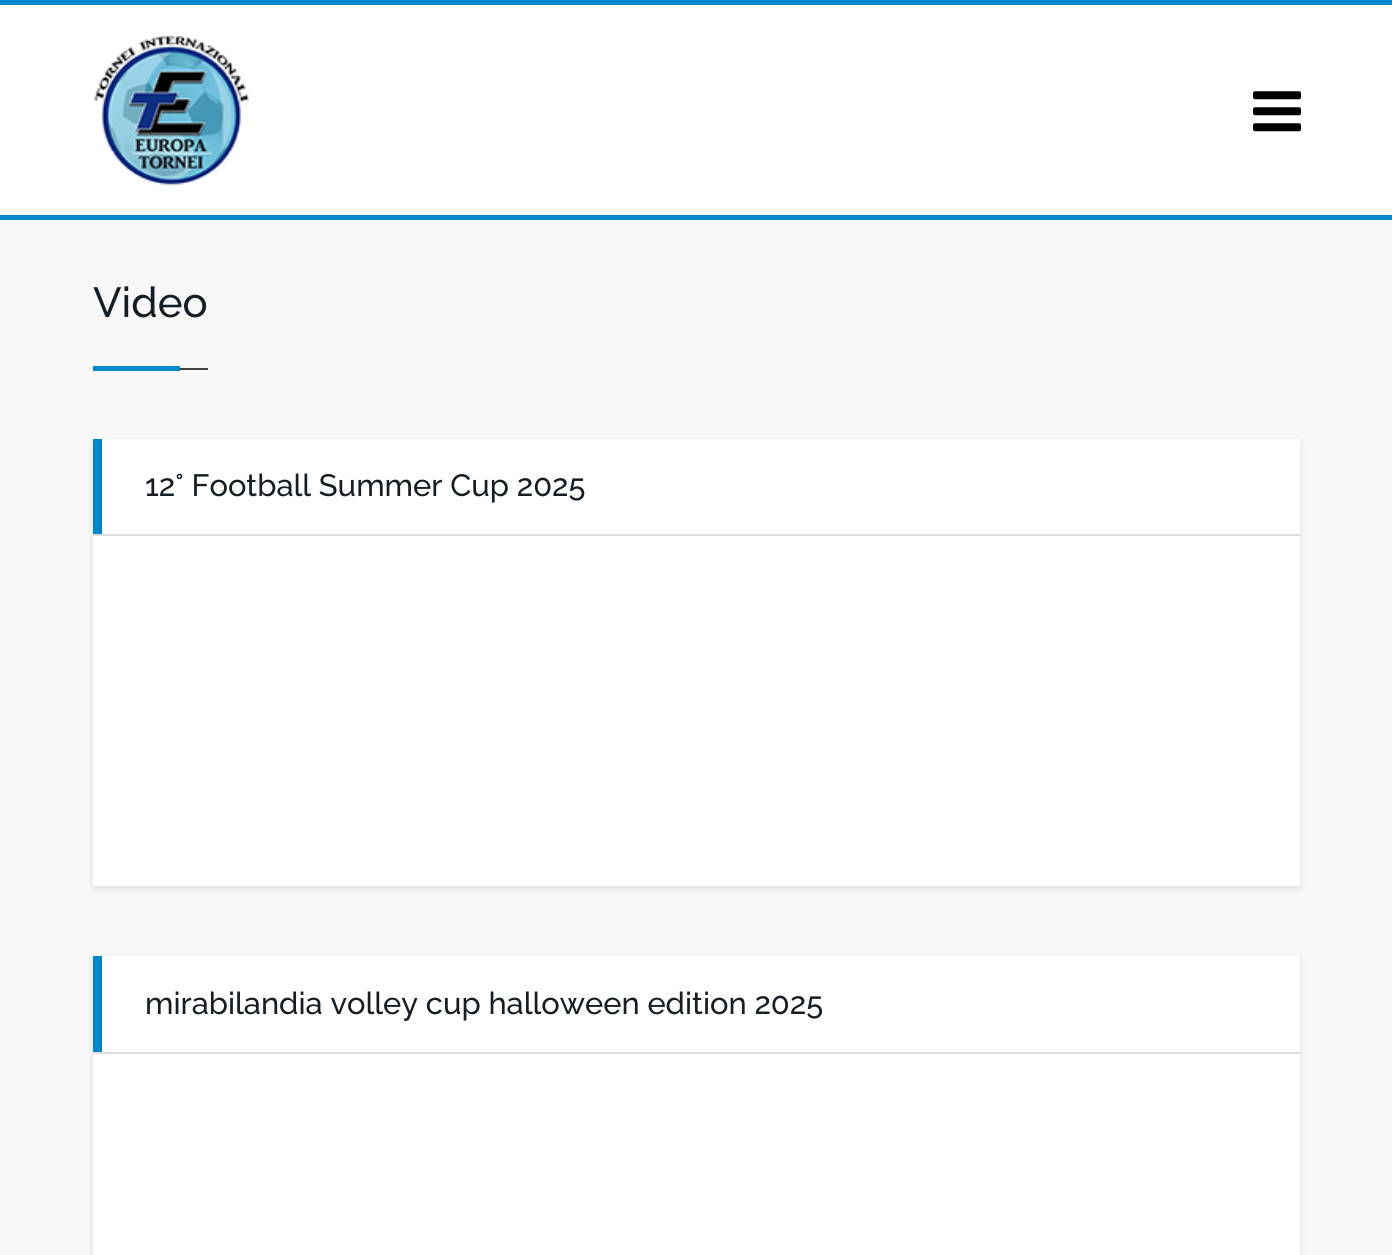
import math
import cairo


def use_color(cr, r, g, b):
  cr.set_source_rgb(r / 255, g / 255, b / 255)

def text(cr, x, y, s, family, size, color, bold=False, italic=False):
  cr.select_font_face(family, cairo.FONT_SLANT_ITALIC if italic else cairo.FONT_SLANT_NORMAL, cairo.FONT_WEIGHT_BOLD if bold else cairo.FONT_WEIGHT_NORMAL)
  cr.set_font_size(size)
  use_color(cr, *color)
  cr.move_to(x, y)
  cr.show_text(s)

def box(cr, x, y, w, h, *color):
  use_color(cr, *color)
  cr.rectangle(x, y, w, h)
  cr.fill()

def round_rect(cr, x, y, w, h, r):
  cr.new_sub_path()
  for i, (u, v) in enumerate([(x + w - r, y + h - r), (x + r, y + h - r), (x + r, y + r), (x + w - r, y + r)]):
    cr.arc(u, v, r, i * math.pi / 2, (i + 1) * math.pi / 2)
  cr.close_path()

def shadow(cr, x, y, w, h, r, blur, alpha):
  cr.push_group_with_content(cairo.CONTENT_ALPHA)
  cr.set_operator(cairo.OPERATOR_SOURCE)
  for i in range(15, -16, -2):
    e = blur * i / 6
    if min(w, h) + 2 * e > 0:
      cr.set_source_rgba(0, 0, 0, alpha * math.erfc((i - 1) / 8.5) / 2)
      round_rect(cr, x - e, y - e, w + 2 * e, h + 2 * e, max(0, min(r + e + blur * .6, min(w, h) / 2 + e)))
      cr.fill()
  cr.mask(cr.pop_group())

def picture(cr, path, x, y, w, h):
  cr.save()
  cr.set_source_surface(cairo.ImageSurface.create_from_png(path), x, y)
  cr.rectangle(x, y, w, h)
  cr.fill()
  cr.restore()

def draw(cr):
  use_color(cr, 248, 248, 248)
  cr.paint()
  box(cr, 0, 5, 1392, 216, 255, 255, 255)
  box(cr, 0, 0, 1392, 5, 0, 136, 204)
  box(cr, 0, 215, 1392, 5, 0, 136, 204)
  picture(cr, "img_01.png", 94, 34, 155, 151)
  picture(cr, "img_02.png", 1253, 91, 48, 41)
  box(cr, 180, 368, 28, 2, 68, 68, 68)
  box(cr, 93, 366, 87, 5, 0, 136, 204)
  use_color(cr, 0, 0, 0)
  shadow(cr, 93, 443, 1207, 446, 0, 3.5, 0.1)
  box(cr, 93, 439, 1207, 447, 255, 255, 255)
  box(cr, 93, 534, 1207, 2, 221, 221, 221)
  box(cr, 93, 439, 9, 95, 0, 136, 204)
  use_color(cr, 0, 0, 0)
  shadow(cr, 93, 959, 1207, 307, 0, 3.5, 0.1)
  box(cr, 93, 956, 1207, 299, 255, 255, 255)
  box(cr, 93, 1052, 1207, 2, 221, 221, 221)
  box(cr, 93, 956, 9, 96, 0, 136, 204)
  text(cr, 93, 317, "Video", "Raleway Medium", 42, (21, 30, 37))
  text(cr, 145, 496, "12° Football Summer Cup 2025", "Raleway Medium", 30.8, (21, 30, 37))
  text(cr, 145, 1014, "mirabilandia volley cup halloween edition 2025", "Raleway Medium", 30.8, (21, 30, 37))


surface = cairo.ImageSurface(cairo.FORMAT_RGB24, 1392, 1255)
cr = cairo.Context(surface)
options = cairo.FontOptions()
options.set_hint_metrics(cairo.HINT_METRICS_OFF)
options.set_hint_style(cairo.HINT_STYLE_NONE)
cr.set_font_options(options)
cr.set_miter_limit(4)
draw(cr)
surface.write_to_png("out.png")
